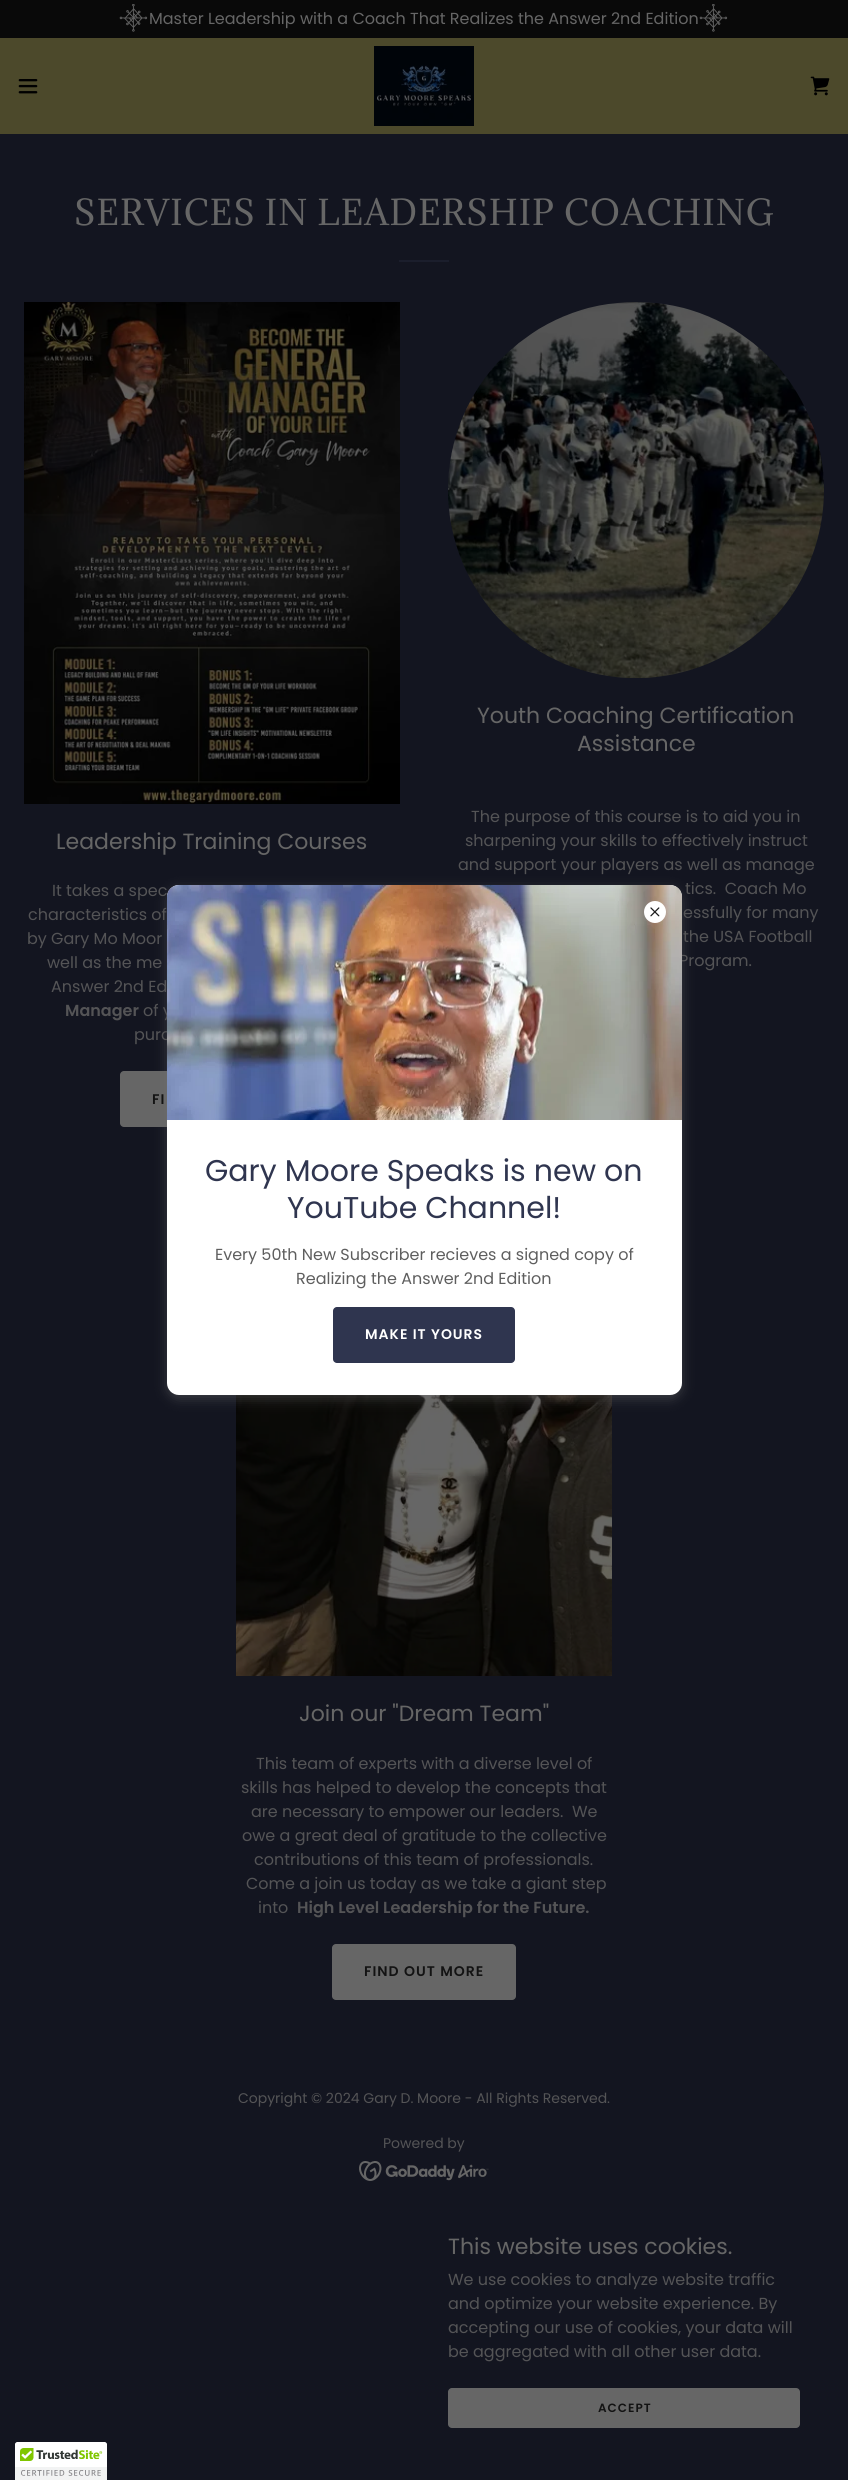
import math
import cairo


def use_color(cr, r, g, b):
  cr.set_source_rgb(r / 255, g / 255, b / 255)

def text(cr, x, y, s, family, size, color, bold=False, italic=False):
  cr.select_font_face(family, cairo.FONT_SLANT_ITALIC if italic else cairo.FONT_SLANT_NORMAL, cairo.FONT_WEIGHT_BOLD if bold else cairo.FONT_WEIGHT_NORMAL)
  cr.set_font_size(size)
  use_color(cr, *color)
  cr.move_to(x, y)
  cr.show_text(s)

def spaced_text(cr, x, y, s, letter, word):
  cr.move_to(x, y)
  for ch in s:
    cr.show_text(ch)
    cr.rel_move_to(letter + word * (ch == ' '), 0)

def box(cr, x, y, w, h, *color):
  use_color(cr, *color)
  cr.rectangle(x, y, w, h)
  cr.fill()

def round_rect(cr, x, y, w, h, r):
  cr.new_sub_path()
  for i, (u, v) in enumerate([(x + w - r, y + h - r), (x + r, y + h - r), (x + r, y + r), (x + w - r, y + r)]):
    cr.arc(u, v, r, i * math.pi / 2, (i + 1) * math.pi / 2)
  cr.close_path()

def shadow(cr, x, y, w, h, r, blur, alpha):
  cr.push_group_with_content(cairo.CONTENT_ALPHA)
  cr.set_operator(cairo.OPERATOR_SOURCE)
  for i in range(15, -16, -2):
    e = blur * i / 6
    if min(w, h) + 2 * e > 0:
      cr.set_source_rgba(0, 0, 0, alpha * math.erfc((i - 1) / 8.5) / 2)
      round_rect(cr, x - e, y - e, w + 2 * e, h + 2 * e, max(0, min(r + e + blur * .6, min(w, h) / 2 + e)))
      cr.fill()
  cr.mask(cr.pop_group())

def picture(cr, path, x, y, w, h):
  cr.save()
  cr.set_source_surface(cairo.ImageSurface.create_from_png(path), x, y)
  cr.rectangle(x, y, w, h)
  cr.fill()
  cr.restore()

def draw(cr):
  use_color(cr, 19, 21, 32)
  cr.paint()
  box(cr, 0, 38, 848, 96, 76, 73, 43)
  box(cr, 0, 0, 848, 38, 9, 9, 9)
  picture(cr, "img_01.png", 119, 4, 29, 28)
  picture(cr, "img_01.png", 699, 4, 29, 28)
  picture(cr, "img_02.png", 18, 79, 20, 15)
  picture(cr, "img_03.png", 374, 46, 100, 80)
  picture(cr, "img_04.png", 810, 76, 20, 20)
  box(cr, 399, 260, 50, 2, 27, 30, 44)
  picture(cr, "img_05.png", 24, 302, 376, 502)
  use_color(cr, 102, 102, 102)
  round_rect(cr, 120, 1071, 184, 56, 4)
  cr.fill()
  picture(cr, "img_06.png", 448, 302, 376, 376)
  picture(cr, "img_07.png", 236, 1395, 376, 281)
  round_rect(cr, 332, 1944, 184, 56, 4)
  cr.fill()
  use_color(cr, 117, 117, 117)
  shadow(cr, 167, 889, 515, 510, 12, 6, 0.4)
  picture(cr, "img_10.png", 359, 2161, 130, 20)
  use_color(cr, 102, 102, 102)
  round_rect(cr, 448, 2388, 352, 40, 4)
  cr.fill()
  picture(cr, "img_11.png", 15, 2442, 92, 38)
  text(cr, 149, 24, "Master Leadership with a Coach That Realizes the Answer 2nd Edition", "Poppins", 16, (102, 102, 102))
  cr.select_font_face("Adamina")
  cr.set_font_size(33)
  spaced_text(cr, 74, 225, "SERVICES IN LEADERSHIP COACHING", 1, 0)
  text(cr, 56, 849, "Leadership Training Courses", "Poppins", 22, (102, 102, 102))
  text(cr, 52, 896, "It takes a spec", "Poppins", 16, (84, 84, 86))
  text(cr, 28, 920, "characteristics of", "Poppins", 16, (84, 84, 86))
  text(cr, 27, 944, "by Gary Mo Moor", "Poppins", 16, (84, 84, 86))
  text(cr, 47, 968, "well as the me", "Poppins", 16, (84, 84, 86))
  text(cr, 51, 992, "Answer 2nd Ed", "Poppins", 16, (84, 84, 86))
  text(cr, 65, 1016, "Manager", "Poppins SemiBold", 16, (84, 84, 86))
  text(cr, 143, 1016, "of y", "Poppins", 16, (84, 84, 86))
  text(cr, 134, 1040, "purc", "Poppins", 16, (84, 84, 86))
  cr.select_font_face("Poppins SemiBold")
  cr.set_font_size(14)
  use_color(cr, 19, 19, 19)
  spaced_text(cr, 152, 1104, "FI", 1, 0)
  text(cr, 477, 723, "Youth Coaching Certification", "Poppins", 22, (102, 102, 102))
  text(cr, 577, 751, "Assistance", "Poppins", 22, (102, 102, 102))
  text(cr, 471, 822, "The purpose of this course is to aid you in", "Poppins", 16, (84, 84, 86))
  text(cr, 465, 846, "sharpening your skills to effectively instruct", "Poppins", 16, (84, 84, 86))
  text(cr, 458, 870, "and support your players as well as manage", "Poppins", 16, (84, 84, 86))
  text(cr, 685, 894, "tics.  Coach Mo", "Poppins", 16, (84, 84, 86))
  text(cr, 683, 918, "essfully for many", "Poppins", 16, (84, 84, 86))
  text(cr, 683, 942, "the USA Football", "Poppins", 16, (84, 84, 86))
  text(cr, 679, 966, "Program.", "Poppins", 16, (84, 84, 86))
  text(cr, 299, 1721, "Join our \"Dream Team\"", "Poppins", 22, (102, 102, 102))
  text(cr, 256, 1769, "This team of experts with a diverse level of", "Poppins", 16, (84, 84, 86))
  text(cr, 241, 1793, "skills has helped to develop the concepts that", "Poppins", 16, (84, 84, 86))
  text(cr, 251, 1817, "are necessary to empower our leaders.  We", "Poppins", 16, (84, 84, 86))
  text(cr, 242, 1841, "owe a great deal of gratitude to the collective", "Poppins", 16, (84, 84, 86))
  text(cr, 254, 1865, "contributions of this team of professionals.", "Poppins", 16, (84, 84, 86))
  text(cr, 246, 1889, "Come a join us today as we take a giant step", "Poppins", 16, (84, 84, 86))
  text(cr, 258, 1913, "into", "Poppins", 16, (84, 84, 86))
  text(cr, 297, 1913, "High Level Leadership for the Future.", "Poppins SemiBold", 16, (84, 84, 86))
  cr.set_font_size(14)
  use_color(cr, 19, 19, 19)
  spaced_text(cr, 364, 1976, "FIND OUT MORE", 1, 0)
  use_color(cr, 255, 255, 255)
  round_rect(cr, 167, 885, 515, 510, 12)
  cr.fill()
  picture(cr, "img_09.png", 167, 885, 515, 235)
  cr.arc(655, 912, 11, 0, 2 * math.pi)
  cr.fill()
  picture(cr, "img_08.png", 650, 907, 10, 10)
  text(cr, 205, 1181, "Gary Moore Speaks is new on", "Poppins", 30, (47, 53, 79))
  text(cr, 287, 1218, "YouTube Channel!", "Poppins", 30, (47, 53, 79))
  text(cr, 215, 1260, "Every 50th New Subscriber recieves a signed copy of", "Poppins", 16, (94, 94, 94))
  text(cr, 296, 1284, "Realizing the Answer 2nd Edition", "Poppins", 16, (94, 94, 94))
  use_color(cr, 47, 53, 79)
  round_rect(cr, 333, 1307, 182, 56, 4)
  cr.fill()
  cr.select_font_face("Poppins SemiBold")
  cr.set_font_size(14)
  use_color(cr, 255, 255, 255)
  spaced_text(cr, 365, 1339, "MAKE IT YOURS", 1, 0)
  text(cr, 238, 2103, "Copyright © 2024 Gary D. Moore - All Rights Reserved.", "Poppins", 14, (84, 84, 86))
  text(cr, 383, 2148, "Powered by", "Poppins", 14, (84, 84, 86))
  text(cr, 448, 2254, "This website uses cookies.", "Poppins", 22, (102, 102, 102))
  text(cr, 448, 2285, "We use cookies to analyze website traffic", "Poppins", 16, (84, 84, 86))
  text(cr, 448, 2309, "and optimize your website experience. By", "Poppins", 16, (84, 84, 86))
  text(cr, 448, 2333, "accepting our use of cookies, your data will", "Poppins", 16, (84, 84, 86))
  text(cr, 448, 2357, "be aggregated with all other user data.", "Poppins", 16, (84, 84, 86))
  cr.select_font_face("Poppins SemiBold")
  cr.set_font_size(12)
  use_color(cr, 19, 19, 19)
  spaced_text(cr, 598, 2412, "ACCEPT", 1, 0)


surface = cairo.ImageSurface(cairo.FORMAT_RGB24, 848, 2480)
cr = cairo.Context(surface)
options = cairo.FontOptions()
options.set_hint_metrics(cairo.HINT_METRICS_OFF)
options.set_hint_style(cairo.HINT_STYLE_NONE)
cr.set_font_options(options)
cr.set_miter_limit(4)
draw(cr)
surface.write_to_png("out.png")
